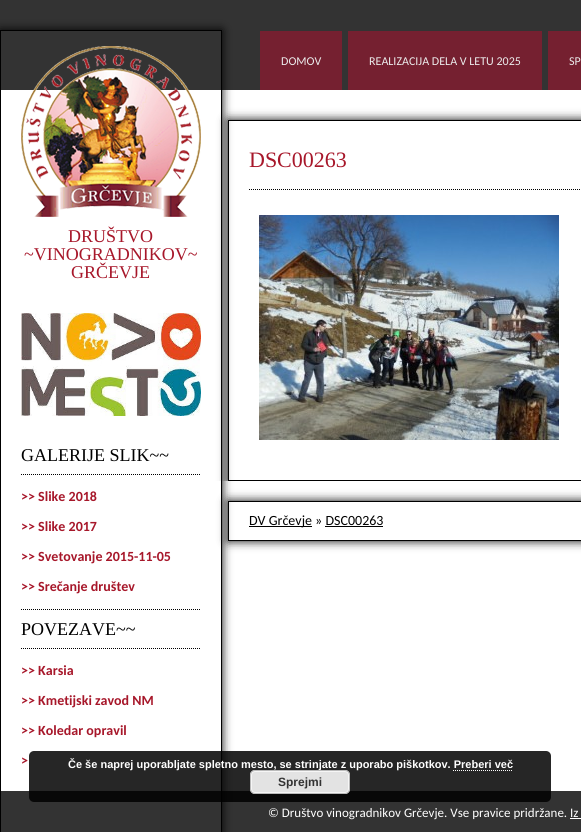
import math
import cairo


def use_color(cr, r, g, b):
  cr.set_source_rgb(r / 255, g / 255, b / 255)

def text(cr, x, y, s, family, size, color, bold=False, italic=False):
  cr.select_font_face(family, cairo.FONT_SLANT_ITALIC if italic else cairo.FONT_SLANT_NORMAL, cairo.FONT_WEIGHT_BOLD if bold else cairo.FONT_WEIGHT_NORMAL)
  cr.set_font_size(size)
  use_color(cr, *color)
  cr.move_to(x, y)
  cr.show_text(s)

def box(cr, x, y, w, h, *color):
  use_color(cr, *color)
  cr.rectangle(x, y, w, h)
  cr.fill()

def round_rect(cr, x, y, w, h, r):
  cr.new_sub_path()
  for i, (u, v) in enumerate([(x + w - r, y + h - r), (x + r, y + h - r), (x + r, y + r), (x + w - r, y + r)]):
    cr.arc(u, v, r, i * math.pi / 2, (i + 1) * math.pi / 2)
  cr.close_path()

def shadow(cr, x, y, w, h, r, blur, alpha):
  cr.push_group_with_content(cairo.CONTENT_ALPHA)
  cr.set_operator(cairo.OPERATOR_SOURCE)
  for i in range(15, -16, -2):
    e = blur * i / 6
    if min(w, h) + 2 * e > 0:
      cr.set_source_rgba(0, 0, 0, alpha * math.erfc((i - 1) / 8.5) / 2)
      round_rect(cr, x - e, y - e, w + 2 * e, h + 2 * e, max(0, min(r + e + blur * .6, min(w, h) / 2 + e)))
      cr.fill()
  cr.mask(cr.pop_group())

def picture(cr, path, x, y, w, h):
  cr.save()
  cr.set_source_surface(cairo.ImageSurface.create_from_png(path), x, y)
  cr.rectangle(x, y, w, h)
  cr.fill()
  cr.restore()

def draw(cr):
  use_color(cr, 255, 255, 255)
  cr.paint()
  box(cr, 0, 0, 581, 90, 51, 51, 51)
  box(cr, 260, 31, 82, 59, 117, 32, 48)
  box(cr, 348, 31, 194, 59, 117, 32, 48)
  box(cr, 548, 31, 33, 59, 117, 32, 48)
  cr.save()
  cr.rectangle(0, 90, 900, 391)
  cr.clip()
  cr.set_fill_rule(cairo.FILL_RULE_EVEN_ODD)
  cr.new_path()
  cr.move_to(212, 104)
  cr.line_to(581, 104)
  cr.line_to(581, 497)
  cr.line_to(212, 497)
  cr.close_path()
  cr.move_to(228, 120)
  cr.line_to(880, 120)
  cr.line_to(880, 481)
  cr.line_to(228, 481)
  cr.close_path()
  cr.clip()
  use_color(cr, 0, 0, 0)
  shadow(cr, 228, 120, 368, 361, 0, 5, 1)
  cr.restore()
  cr.rectangle(228.5, 120.5, 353, 360)
  use_color(cr, 0, 0, 0)
  cr.set_line_width(1)
  cr.stroke()
  cr.save()
  cr.set_fill_rule(cairo.FILL_RULE_EVEN_ODD)
  cr.new_path()
  cr.move_to(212, 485)
  cr.line_to(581, 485)
  cr.line_to(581, 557)
  cr.line_to(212, 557)
  cr.close_path()
  cr.move_to(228, 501)
  cr.line_to(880, 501)
  cr.line_to(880, 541)
  cr.line_to(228, 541)
  cr.close_path()
  cr.clip()
  use_color(cr, 0, 0, 0)
  shadow(cr, 228, 501, 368, 40, 0, 5, 1)
  cr.restore()
  cr.rectangle(228.5, 501.5, 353, 39)
  cr.stroke()
  cr.save()
  cr.set_fill_rule(cairo.FILL_RULE_EVEN_ODD)
  cr.new_path()
  cr.move_to(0, 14)
  cr.line_to(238, 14)
  cr.line_to(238, 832)
  cr.line_to(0, 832)
  cr.close_path()
  cr.move_to(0, 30)
  cr.line_to(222, 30)
  cr.line_to(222, 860)
  cr.line_to(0, 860)
  cr.close_path()
  cr.clip()
  use_color(cr, 0, 0, 0)
  shadow(cr, 0, 30, 222, 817, 0, 5, 1)
  cr.restore()
  cr.rectangle(0.5, 30.5, 221, 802)
  cr.stroke()
  picture(cr, "img_01.png", 21, 46, 180, 171)
  picture(cr, "img_02.png", 21, 313, 180, 103)
  cr.new_path()
  cr.move_to(21, 474.5)
  cr.line_to(201, 474.5)
  cr.set_dash([1, 1])
  cr.stroke()
  cr.new_path()
  cr.move_to(21, 609.5)
  cr.line_to(201, 609.5)
  cr.stroke()
  cr.new_path()
  cr.move_to(21, 648.5)
  cr.line_to(201, 648.5)
  cr.stroke()
  cr.new_path()
  cr.move_to(249, 189.5)
  cr.line_to(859, 189.5)
  cr.stroke()
  picture(cr, "img_03.png", 259, 215, 300, 225)
  box(cr, 249, 526, 63, 1, 0, 0, 0)
  box(cr, 325, 526, 58, 1, 0, 0, 0)
  cr.set_source_rgba(0, 0, 0, 0.8)
  cr.rectangle(1, 791, 580, 41)
  cr.fill()
  cr.set_source_rgba(0, 0, 0, 0.85)
  round_rect(cr, 29, 751, 522, 51, 5)
  cr.fill()
  cr.new_path()
  cr.move_to(453, 770.5)
  cr.line_to(513, 770.5)
  use_color(cr, 255, 255, 255)
  cr.stroke()
  box(cr, 570, 818, 11, 1, 255, 255, 255)
  text(cr, 281, 65, "DOMOV", "Carlito", 12, (235, 235, 235))
  text(cr, 369, 65, "REALIZACIJA DELA V LETU 2025", "Carlito", 12, (235, 235, 235))
  text(cr, 569, 65, "SP", "Carlito", 12, (235, 235, 235))
  text(cr, 68, 242, "DRUŠTVO", "Liberation Serif", 18, (167, 23, 42))
  text(cr, 24, 260, "~VINOGRADNIKOV~", "Liberation Serif", 18, (167, 23, 42))
  text(cr, 71, 278, "GRČEVJE", "Liberation Serif", 18, (167, 23, 42))
  text(cr, 21, 461, "GALERIJE SLIK~~", "Liberation Serif", 18, (0, 0, 0))
  text(cr, 21, 501, ">> Slike 2018", "Carlito", 14, (167, 23, 42), bold=True)
  text(cr, 21, 531, ">> Slike 2017", "Carlito", 14, (167, 23, 42), bold=True)
  text(cr, 21, 561, ">> Svetovanje 2015-11-05", "Carlito", 14, (167, 23, 42), bold=True)
  text(cr, 21, 591, ">> Srečanje društev", "Carlito", 14, (167, 23, 42), bold=True)
  text(cr, 21, 635, "POVEZAVE~~", "Liberation Serif", 18, (0, 0, 0))
  text(cr, 21, 675, ">> Karsia", "Carlito", 14, (167, 23, 42), bold=True)
  text(cr, 21, 705, ">> Kmetijski zavod NM", "Carlito", 14, (167, 23, 42), bold=True)
  text(cr, 21, 735, ">> Koledar opravil", "Carlito", 14, (167, 23, 42), bold=True)
  text(cr, 21, 765, ">", "Carlito", 14, (167, 23, 42), bold=True)
  text(cr, 249, 167, "DSC00263", "Liberation Serif", 22, (167, 23, 42))
  text(cr, 249, 525, "DV Grčevje » DSC00263", "Carlito", 14, (0, 0, 0))
  text(cr, 68, 768, "Če še naprej uporabljate spletno mesto, se strinjate z uporabo piškotkov. Preberi več", "Liberation Sans", 11, (255, 255, 255), bold=True)
  use_color(cr, 227, 227, 227)
  round_rect(cr, 250, 770, 100, 24, 5)
  cr.fill()
  round_rect(cr, 251.5, 771.5, 97, 21, 3.5)
  use_color(cr, 246, 246, 246)
  cr.set_dash([])
  cr.stroke()
  round_rect(cr, 250.5, 770.5, 99, 23, 4.5)
  use_color(cr, 187, 187, 187)
  cr.stroke()
  text(cr, 278, 786, "Sprejmi", "Liberation Sans", 12, (51, 51, 51), bold=True)
  text(cr, 268, 817, "© Društvo vinogradnikov Grčevje. Vse pravice pridržane. Iz", "Carlito", 13, (255, 255, 255))


surface = cairo.ImageSurface(cairo.FORMAT_RGB24, 581, 832)
cr = cairo.Context(surface)
options = cairo.FontOptions()
options.set_hint_metrics(cairo.HINT_METRICS_OFF)
options.set_hint_style(cairo.HINT_STYLE_NONE)
cr.set_font_options(options)
cr.set_miter_limit(4)
draw(cr)
surface.write_to_png("out.png")
